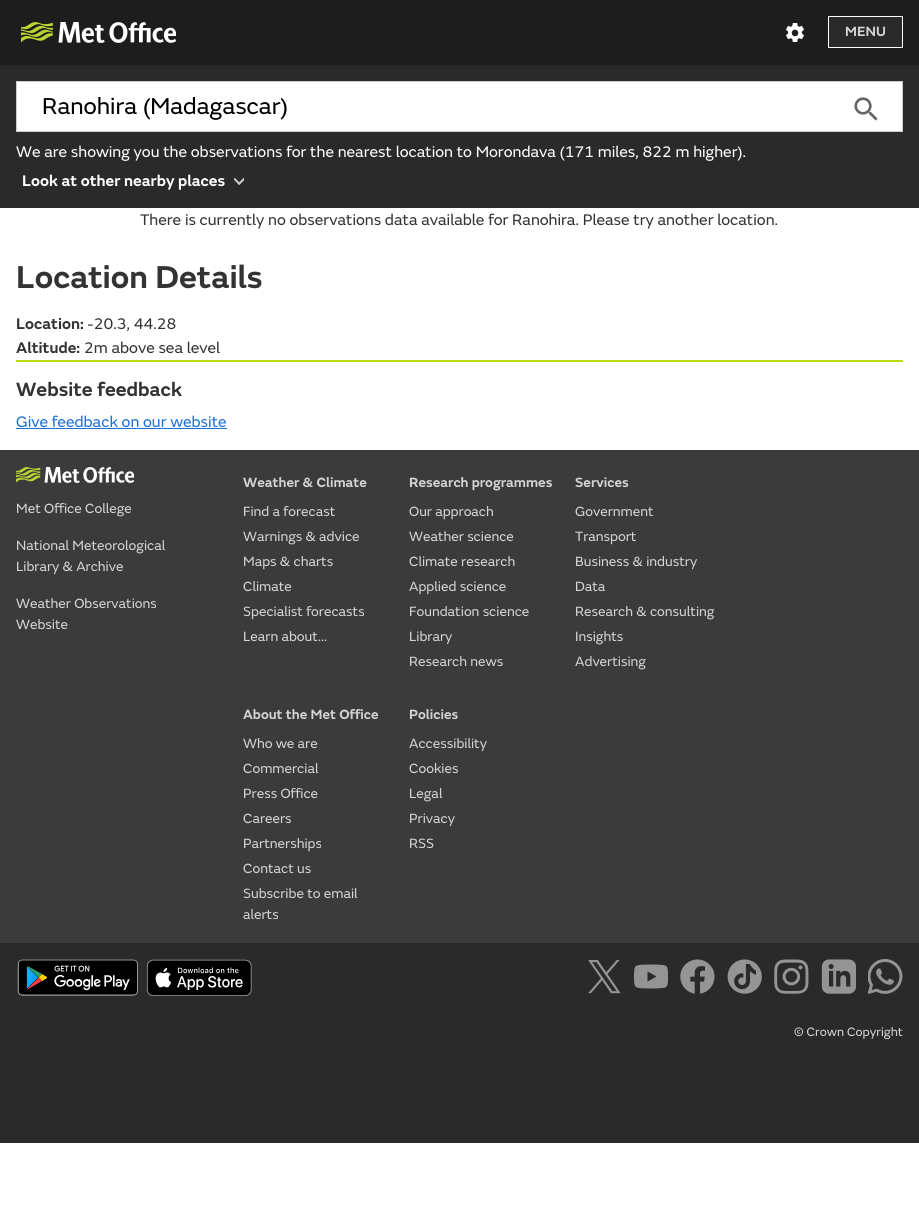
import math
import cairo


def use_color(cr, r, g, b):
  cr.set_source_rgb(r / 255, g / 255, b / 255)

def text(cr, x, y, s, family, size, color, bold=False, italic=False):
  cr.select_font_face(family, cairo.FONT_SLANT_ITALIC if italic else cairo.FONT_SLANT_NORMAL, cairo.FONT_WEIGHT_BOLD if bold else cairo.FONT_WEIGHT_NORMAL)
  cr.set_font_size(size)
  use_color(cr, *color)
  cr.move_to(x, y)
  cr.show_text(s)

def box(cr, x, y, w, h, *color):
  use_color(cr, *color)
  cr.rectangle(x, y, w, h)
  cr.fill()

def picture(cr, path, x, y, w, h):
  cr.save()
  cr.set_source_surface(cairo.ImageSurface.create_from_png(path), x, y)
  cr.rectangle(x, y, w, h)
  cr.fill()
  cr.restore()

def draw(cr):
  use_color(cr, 255, 255, 255)
  cr.paint()
  box(cr, 0, 0, 919, 65, 29, 29, 29)
  picture(cr, "img_01.png", 21, 22, 155, 21)
  picture(cr, "img_02.png", 786, 23, 18, 19)
  use_color(cr, 42, 42, 42)
  cr.rectangle(828.5, 16.5, 74, 31)
  cr.fill_preserve()
  use_color(cr, 255, 255, 255)
  cr.set_line_width(1)
  cr.stroke()
  box(cr, 0, 65, 919, 143, 42, 42, 42)
  cr.rectangle(16.5, 81.5, 886, 50)
  use_color(cr, 204, 204, 204)
  cr.stroke()
  box(cr, 17, 82, 885, 49, 255, 255, 255)
  picture(cr, "img_03.png", 854, 97, 24, 24)
  picture(cr, "img_04.png", 234, 177, 10, 9)
  box(cr, 16, 360, 887, 2, 185, 220, 12)
  box(cr, 16, 428, 211, 1, 29, 112, 216)
  box(cr, 0, 450, 919, 493, 59, 59, 59)
  picture(cr, "img_05.png", 16, 467, 118, 16)
  box(cr, 0, 943, 919, 200, 42, 42, 42)
  picture(cr, "img_06.png", 17, 959, 121, 37)
  picture(cr, "img_07.png", 146, 959, 106, 37)
  picture(cr, "img_08.png", 588, 960, 33, 34)
  picture(cr, "img_09.png", 633, 964, 35, 25)
  picture(cr, "img_10.png", 680, 959, 35, 35)
  picture(cr, "img_11.png", 727, 959, 35, 35)
  picture(cr, "img_12.png", 774, 959, 35, 35)
  picture(cr, "img_13.png", 821, 959, 35, 35)
  picture(cr, "img_14.png", 868, 959, 35, 35)
  text(cr, 845, 36, "MENU", "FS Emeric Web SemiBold", 14, (212, 212, 212))
  text(cr, 42, 114, "Ranohira (Madagascar)", "FS Emeric Web", 24, (0, 0, 0))
  text(cr, 16, 157, "We are showing you the observations for the nearest location to Morondava (171 miles, 822 m higher).", "FS Emeric Web", 16, (255, 255, 255))
  text(cr, 22, 186, "Look at other nearby places", "FS Emeric Web SemiBold", 16, (255, 255, 255))
  text(cr, 140, 225, "There is currently no observations data available for Ranohira. Please try another location.", "FS Emeric Web", 16, (51, 51, 51))
  text(cr, 16, 288, "Location Details", "FS Emeric Web SemiBold", 33, (51, 51, 51))
  text(cr, 16, 329, "Location:", "FS Emeric Web SemiBold", 16, (51, 51, 51))
  text(cr, 87, 329, "-20.3, 44.28", "FS Emeric Web", 16, (51, 51, 51))
  text(cr, 16, 353, "Altitude:", "FS Emeric Web SemiBold", 16, (51, 51, 51))
  text(cr, 84, 353, "2m above sea level", "FS Emeric Web", 16, (51, 51, 51))
  text(cr, 16, 396, "Website feedback", "FS Emeric Web SemiBold", 20, (51, 51, 51))
  text(cr, 16, 427, "Give feedback on our website", "FS Emeric Web", 16, (29, 112, 216))
  text(cr, 16, 513, "Met Office College", "FS Emeric Web", 14, (212, 212, 212))
  text(cr, 16, 550, "National Meteorological", "FS Emeric Web", 14, (212, 212, 212))
  text(cr, 16, 571, "Library & Archive", "FS Emeric Web", 14, (212, 212, 212))
  text(cr, 16, 608, "Weather Observations", "FS Emeric Web", 14, (212, 212, 212))
  text(cr, 16, 629, "Website", "FS Emeric Web", 14, (212, 212, 212))
  text(cr, 243, 487, "Weather & Climate", "FS Emeric Web SemiBold", 14, (212, 212, 212))
  text(cr, 243, 516, "Find a forecast", "FS Emeric Web", 14, (212, 212, 212))
  text(cr, 243, 541, "Warnings & advice", "FS Emeric Web", 14, (212, 212, 212))
  text(cr, 243, 566, "Maps & charts", "FS Emeric Web", 14, (212, 212, 212))
  text(cr, 243, 591, "Climate", "FS Emeric Web", 14, (212, 212, 212))
  text(cr, 243, 616, "Specialist forecasts", "FS Emeric Web", 14, (212, 212, 212))
  text(cr, 243, 641, "Learn about...", "FS Emeric Web", 14, (212, 212, 212))
  text(cr, 409, 487, "Research programmes", "FS Emeric Web SemiBold", 14, (212, 212, 212))
  text(cr, 409, 516, "Our approach", "FS Emeric Web", 14, (212, 212, 212))
  text(cr, 409, 541, "Weather science", "FS Emeric Web", 14, (212, 212, 212))
  text(cr, 409, 566, "Climate research", "FS Emeric Web", 14, (212, 212, 212))
  text(cr, 409, 591, "Applied science", "FS Emeric Web", 14, (212, 212, 212))
  text(cr, 409, 616, "Foundation science", "FS Emeric Web", 14, (212, 212, 212))
  text(cr, 409, 641, "Library", "FS Emeric Web", 14, (212, 212, 212))
  text(cr, 409, 666, "Research news", "FS Emeric Web", 14, (212, 212, 212))
  text(cr, 575, 487, "Services", "FS Emeric Web SemiBold", 14, (212, 212, 212))
  text(cr, 575, 516, "Government", "FS Emeric Web", 14, (212, 212, 212))
  text(cr, 575, 541, "Transport", "FS Emeric Web", 14, (212, 212, 212))
  text(cr, 575, 566, "Business & industry", "FS Emeric Web", 14, (212, 212, 212))
  text(cr, 575, 591, "Data", "FS Emeric Web", 14, (212, 212, 212))
  text(cr, 575, 616, "Research & consulting", "FS Emeric Web", 14, (212, 212, 212))
  text(cr, 575, 641, "Insights", "FS Emeric Web", 14, (212, 212, 212))
  text(cr, 575, 666, "Advertising", "FS Emeric Web", 14, (212, 212, 212))
  text(cr, 243, 719, "About the Met Office", "FS Emeric Web SemiBold", 14, (212, 212, 212))
  text(cr, 243, 748, "Who we are", "FS Emeric Web", 14, (212, 212, 212))
  text(cr, 243, 773, "Commercial", "FS Emeric Web", 14, (212, 212, 212))
  text(cr, 243, 798, "Press Office", "FS Emeric Web", 14, (212, 212, 212))
  text(cr, 243, 823, "Careers", "FS Emeric Web", 14, (212, 212, 212))
  text(cr, 243, 848, "Partnerships", "FS Emeric Web", 14, (212, 212, 212))
  text(cr, 243, 873, "Contact us", "FS Emeric Web", 14, (212, 212, 212))
  text(cr, 243, 898, "Subscribe to email", "FS Emeric Web", 14, (212, 212, 212))
  text(cr, 243, 919, "alerts", "FS Emeric Web", 14, (212, 212, 212))
  text(cr, 409, 719, "Policies", "FS Emeric Web SemiBold", 14, (212, 212, 212))
  text(cr, 409, 748, "Accessibility", "FS Emeric Web", 14, (212, 212, 212))
  text(cr, 409, 773, "Cookies", "FS Emeric Web", 14, (212, 212, 212))
  text(cr, 409, 798, "Legal", "FS Emeric Web", 14, (212, 212, 212))
  text(cr, 409, 823, "Privacy", "FS Emeric Web", 14, (212, 212, 212))
  text(cr, 409, 848, "RSS", "FS Emeric Web", 14, (212, 212, 212))
  text(cr, 794, 1036, "© Crown Copyright", "FS Emeric Web", 12.75, (212, 212, 212))


surface = cairo.ImageSurface(cairo.FORMAT_RGB24, 919, 1219)
cr = cairo.Context(surface)
options = cairo.FontOptions()
options.set_hint_metrics(cairo.HINT_METRICS_OFF)
options.set_hint_style(cairo.HINT_STYLE_NONE)
cr.set_font_options(options)
cr.set_miter_limit(4)
draw(cr)
surface.write_to_png("out.png")
